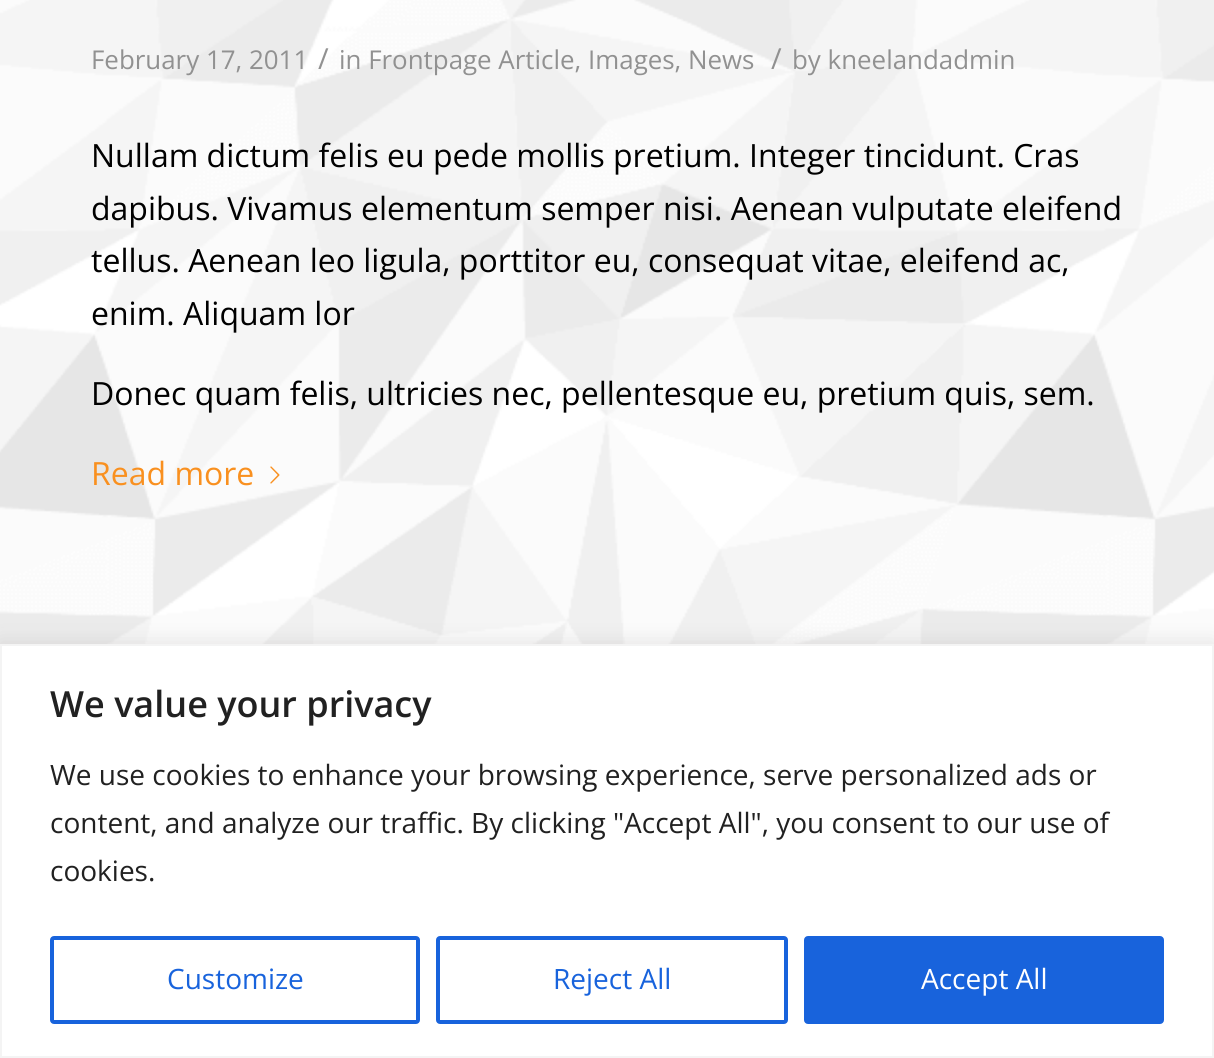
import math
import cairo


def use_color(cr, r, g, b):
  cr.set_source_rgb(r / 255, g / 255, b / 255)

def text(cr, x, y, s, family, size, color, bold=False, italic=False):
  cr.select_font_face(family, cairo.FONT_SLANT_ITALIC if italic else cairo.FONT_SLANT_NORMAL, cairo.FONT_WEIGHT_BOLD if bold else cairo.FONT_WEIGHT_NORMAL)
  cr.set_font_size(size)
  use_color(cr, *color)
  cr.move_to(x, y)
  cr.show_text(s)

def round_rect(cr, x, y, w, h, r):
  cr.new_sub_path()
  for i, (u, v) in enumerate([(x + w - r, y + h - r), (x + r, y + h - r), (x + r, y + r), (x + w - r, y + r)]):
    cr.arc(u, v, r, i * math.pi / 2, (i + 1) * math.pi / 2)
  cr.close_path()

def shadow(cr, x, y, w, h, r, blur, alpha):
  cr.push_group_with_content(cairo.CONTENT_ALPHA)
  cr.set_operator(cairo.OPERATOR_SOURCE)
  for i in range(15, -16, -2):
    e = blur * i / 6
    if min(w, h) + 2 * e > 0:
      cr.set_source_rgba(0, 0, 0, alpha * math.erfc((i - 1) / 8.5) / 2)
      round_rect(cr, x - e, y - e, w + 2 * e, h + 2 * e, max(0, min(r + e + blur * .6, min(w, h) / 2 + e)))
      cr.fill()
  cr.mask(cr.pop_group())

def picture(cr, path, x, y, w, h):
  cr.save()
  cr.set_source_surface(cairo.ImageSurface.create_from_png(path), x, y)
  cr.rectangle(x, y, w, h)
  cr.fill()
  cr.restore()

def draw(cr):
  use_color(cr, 255, 255, 255)
  cr.paint()
  picture(cr, "img_01.png", 0, 0, 1214, 644)
  picture(cr, "img_02.png", 270, 466, 10, 18)
  use_color(cr, 172, 171, 171)
  shadow(cr, 0, 642, 1214, 414, 0, 10, 0.3)
  use_color(cr, 255, 255, 255)
  cr.rectangle(1, 645, 1212, 412)
  cr.fill_preserve()
  use_color(cr, 244, 244, 244)
  cr.stroke()
  round_rect(cr, 52, 938, 366, 84, 2)
  use_color(cr, 24, 99, 220)
  cr.set_line_width(4)
  cr.stroke()
  round_rect(cr, 438, 938, 348, 84, 2)
  cr.stroke()
  round_rect(cr, 806, 938, 356, 84, 2)
  cr.fill_preserve()
  cr.stroke()
  text(cr, 91, 69, "February 17, 2011", "Open Sans", 25.9, (145, 145, 145))
  text(cr, 318, 69, "/", "Open Sans", 29, (145, 145, 145))
  text(cr, 339, 69, "in Frontpage Article, Images, News", "Open Sans", 25.9, (145, 145, 145))
  text(cr, 771, 69, "/", "Open Sans", 29, (145, 145, 145))
  text(cr, 792, 69, "by kneelandadmin", "Open Sans", 25.9, (145, 145, 145))
  text(cr, 91, 167, "Nullam dictum felis eu pede mollis pretium. Integer tincidunt. Cras", "Open Sans", 32, (0, 0, 0))
  text(cr, 91, 220, "dapibus. Vivamus elementum semper nisi. Aenean vulputate eleifend", "Open Sans", 32, (0, 0, 0))
  text(cr, 91, 272, "tellus. Aenean leo ligula, porttitor eu, consequat vitae, eleifend ac,", "Open Sans", 32, (0, 0, 0))
  text(cr, 91, 325, "enim. Aliquam lor", "Open Sans", 32, (0, 0, 0))
  text(cr, 91, 405, "Donec quam felis, ultricies nec, pellentesque eu, pretium quis, sem.", "Open Sans", 32, (0, 0, 0))
  text(cr, 91, 485, "Read more", "Open Sans", 32, (249, 144, 31))
  text(cr, 50, 717, "We value your privacy", "Open Sans SemiBold", 36, (33, 33, 33))
  text(cr, 50, 785, "We use cookies to enhance your browsing experience, serve personalized ads or", "Open Sans", 28, (33, 33, 33))
  text(cr, 50, 833, "content, and analyze our traffic. By clicking \"Accept All\", you consent to our use of", "Open Sans", 28, (33, 33, 33))
  text(cr, 50, 881, "cookies.", "Open Sans", 28, (33, 33, 33))
  text(cr, 167, 989, "Customize", "Open Sans", 28, (24, 99, 220))
  text(cr, 553, 989, "Reject All", "Open Sans", 28, (24, 99, 220))
  text(cr, 921, 989, "Accept All", "Open Sans", 28, (255, 255, 255))


surface = cairo.ImageSurface(cairo.FORMAT_RGB24, 1214, 1058)
cr = cairo.Context(surface)
options = cairo.FontOptions()
options.set_hint_metrics(cairo.HINT_METRICS_OFF)
options.set_hint_style(cairo.HINT_STYLE_NONE)
cr.set_font_options(options)
cr.set_miter_limit(4)
draw(cr)
surface.write_to_png("out.png")
